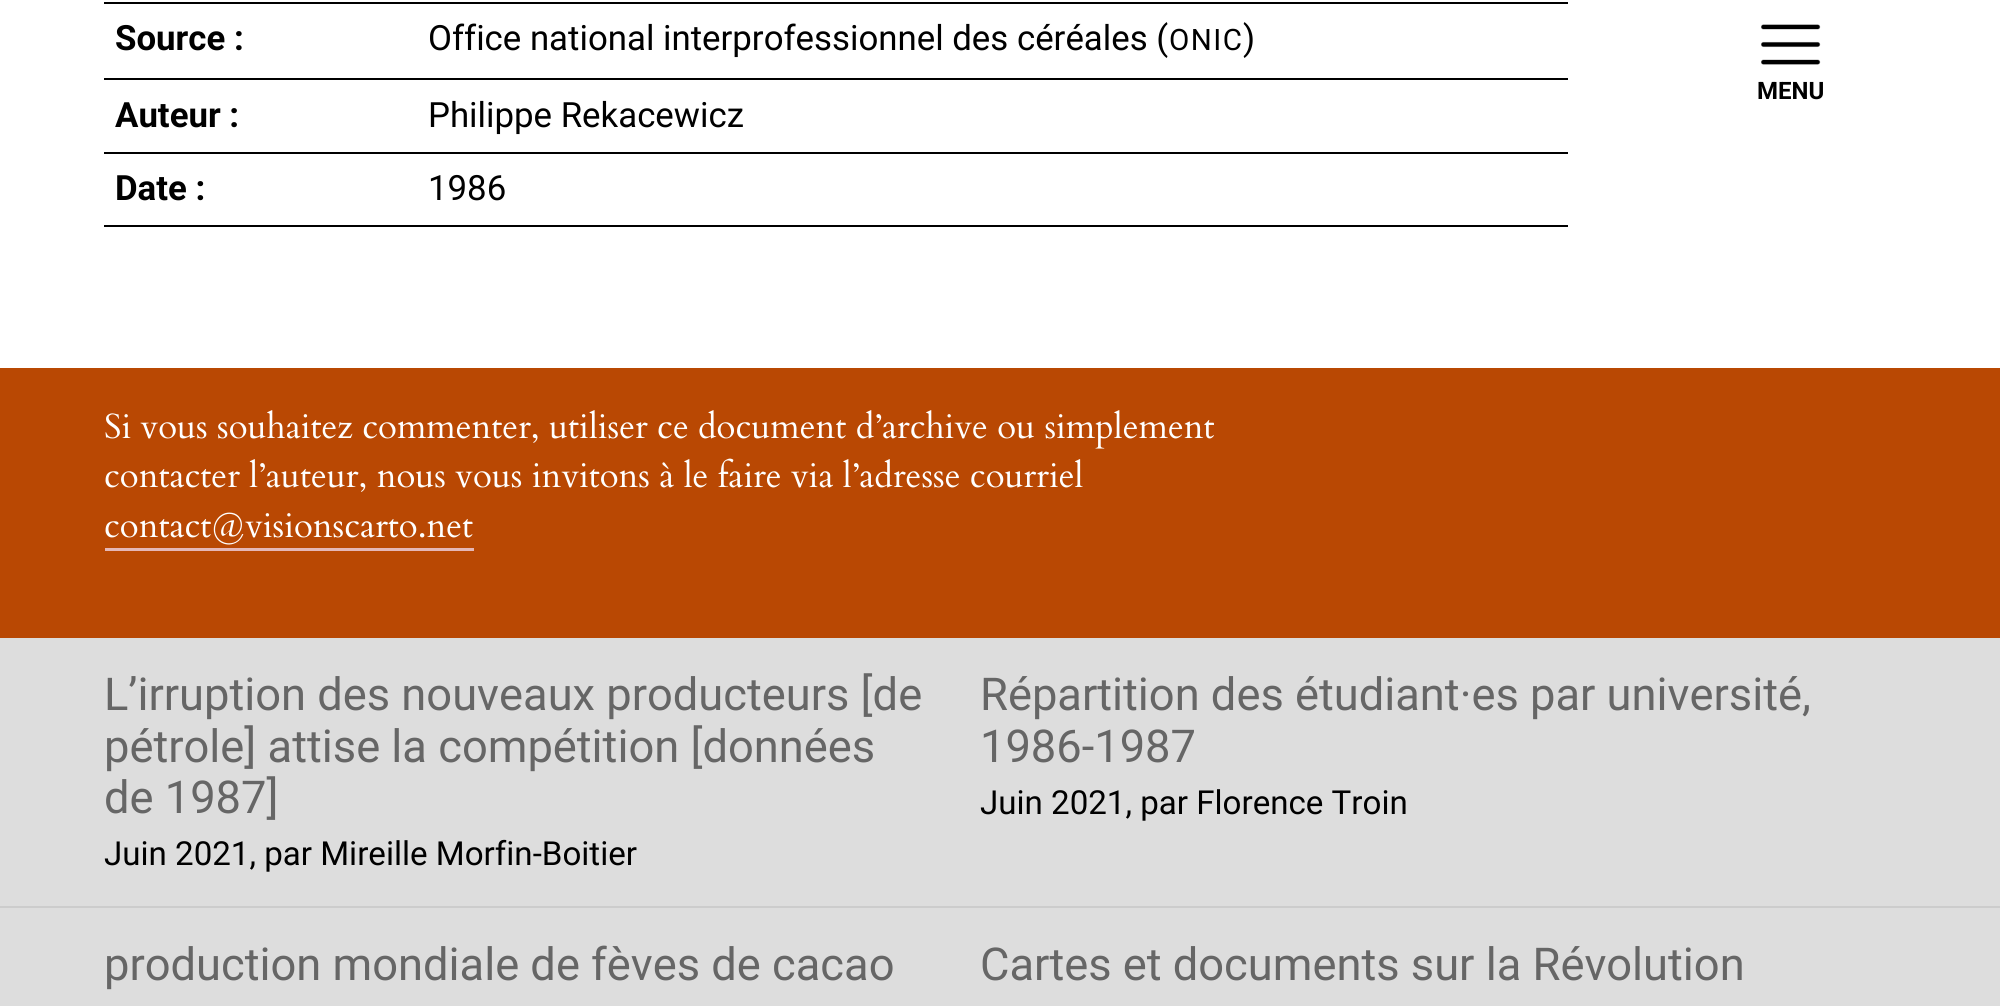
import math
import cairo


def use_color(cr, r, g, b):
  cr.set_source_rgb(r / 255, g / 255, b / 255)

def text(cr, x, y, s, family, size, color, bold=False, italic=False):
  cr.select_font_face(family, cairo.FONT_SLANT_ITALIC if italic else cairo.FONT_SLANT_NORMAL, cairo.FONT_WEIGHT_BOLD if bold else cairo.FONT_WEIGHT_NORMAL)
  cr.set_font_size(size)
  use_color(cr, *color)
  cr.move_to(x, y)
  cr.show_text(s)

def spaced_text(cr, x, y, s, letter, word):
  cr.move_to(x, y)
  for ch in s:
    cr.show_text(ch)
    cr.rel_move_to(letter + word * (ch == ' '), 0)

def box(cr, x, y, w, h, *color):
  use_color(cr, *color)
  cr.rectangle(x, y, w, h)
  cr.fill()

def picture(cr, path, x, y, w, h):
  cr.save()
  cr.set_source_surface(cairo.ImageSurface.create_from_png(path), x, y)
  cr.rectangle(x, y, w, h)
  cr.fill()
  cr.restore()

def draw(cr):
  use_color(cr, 255, 255, 255)
  cr.paint()
  box(cr, 104, 2, 1464, 2, 0, 0, 0)
  box(cr, 104, 78, 1464, 2, 0, 0, 0)
  box(cr, 104, 152, 1464, 2, 0, 0, 0)
  box(cr, 104, 225, 1464, 2, 0, 0, 0)
  box(cr, 0, 368, 2000, 270, 185, 72, 3)
  box(cr, 105, 548, 369, 3, 229, 183, 183)
  picture(cr, "img_01.png", 1761, 24, 60, 41)
  box(cr, 0, 638, 2000, 268, 221, 221, 221)
  box(cr, 0, 908, 2000, 98, 221, 221, 221)
  box(cr, 0, 906, 2000, 2, 204, 204, 204)
  text(cr, 115, 50, "Source :", "Roboto", 34.8, (0, 0, 0), bold=True)
  text(cr, 428, 50, "Office national interprofessionnel des céréales (", "Roboto", 34.8, (0, 0, 0))
  cr.set_font_size(29.5)
  spaced_text(cr, 1169, 50, "ONIC", 1.5, 0)
  text(cr, 1243, 50, ")", "Roboto", 34.8, (0, 0, 0))
  text(cr, 115, 127, "Auteur :", "Roboto", 34.8, (0, 0, 0), bold=True)
  text(cr, 428, 127, "Philippe Rekacewicz", "Roboto", 34.8, (0, 0, 0))
  text(cr, 115, 200, "Date :", "Roboto", 34.8, (0, 0, 0), bold=True)
  text(cr, 428, 200, "1986", "Roboto", 34.8, (0, 0, 0))
  text(cr, 104, 438, "Si vous souhaitez commenter, utiliser ce document d’archive ou simplement", "Cardo", 34.8, (255, 255, 255))
  text(cr, 104, 487, "contacter l’auteur, nous vous invitons à le faire via l’adresse courriel", "Cardo", 34.8, (255, 255, 255))
  text(cr, 104, 537, "contact@visionscarto.net", "Cardo", 34.8, (255, 255, 255))
  text(cr, 1757, 99, "MENU", "Roboto", 24, (0, 0, 0), bold=True)
  text(cr, 104, 710, "L’irruption des nouveaux producteurs [de", "Roboto", 45.25, (102, 102, 102))
  text(cr, 104, 762, "pétrole] attise la compétition [données", "Roboto", 45.25, (102, 102, 102))
  text(cr, 104, 813, "de 1987]", "Roboto", 45.25, (102, 102, 102))
  text(cr, 104, 865, "Juin 2021, par Mireille Morfin-Boitier", "Roboto", 33.1, (0, 0, 0))
  text(cr, 980, 710, "Répartition des étudiant·es par université,", "Roboto", 45.25, (102, 102, 102))
  text(cr, 980, 762, "1986-1987", "Roboto", 45.25, (102, 102, 102))
  text(cr, 980, 814, "Juin 2021, par Florence Troin", "Roboto", 33.1, (0, 0, 0))
  text(cr, 104, 980, "production mondiale de fèves de cacao", "Roboto", 45.25, (102, 102, 102))
  text(cr, 980, 980, "Cartes et documents sur la Révolution", "Roboto", 45.25, (102, 102, 102))


surface = cairo.ImageSurface(cairo.FORMAT_RGB24, 2000, 1006)
cr = cairo.Context(surface)
options = cairo.FontOptions()
options.set_hint_metrics(cairo.HINT_METRICS_OFF)
options.set_hint_style(cairo.HINT_STYLE_NONE)
cr.set_font_options(options)
cr.set_miter_limit(4)
draw(cr)
surface.write_to_png("out.png")
